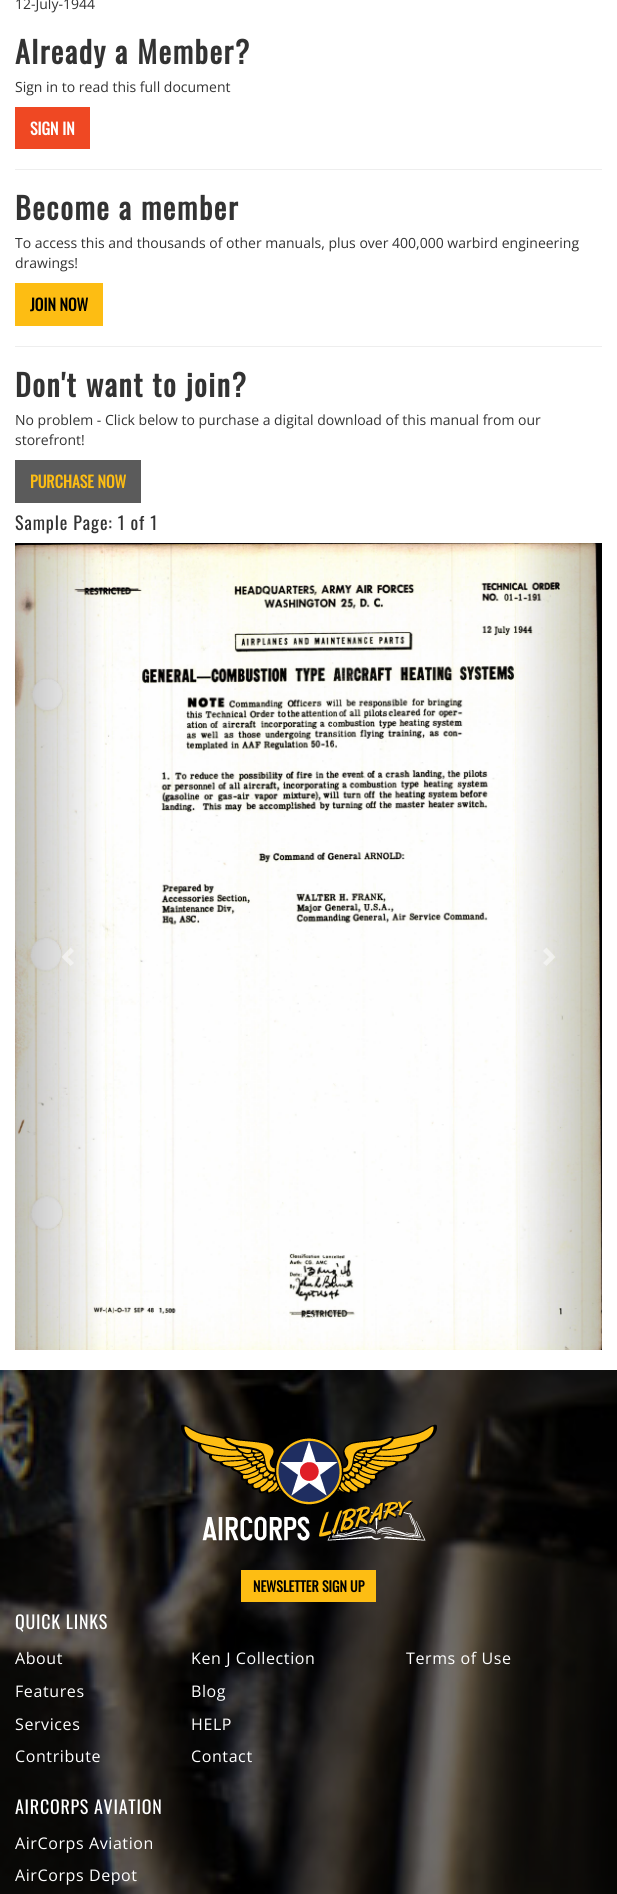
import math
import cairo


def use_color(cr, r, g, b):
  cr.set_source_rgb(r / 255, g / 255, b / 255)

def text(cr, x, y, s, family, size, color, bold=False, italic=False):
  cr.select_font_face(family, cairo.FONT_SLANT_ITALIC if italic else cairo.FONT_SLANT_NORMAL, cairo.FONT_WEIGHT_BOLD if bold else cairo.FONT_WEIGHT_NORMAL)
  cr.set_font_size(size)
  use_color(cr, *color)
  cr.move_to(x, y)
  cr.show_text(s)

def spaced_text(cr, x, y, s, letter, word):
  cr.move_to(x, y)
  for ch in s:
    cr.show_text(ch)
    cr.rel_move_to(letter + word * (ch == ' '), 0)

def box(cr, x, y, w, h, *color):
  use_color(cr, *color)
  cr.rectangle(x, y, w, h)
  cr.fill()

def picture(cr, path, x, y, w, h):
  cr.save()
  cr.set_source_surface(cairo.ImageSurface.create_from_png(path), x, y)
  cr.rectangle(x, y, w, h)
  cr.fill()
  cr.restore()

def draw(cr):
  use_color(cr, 255, 255, 255)
  cr.paint()
  box(cr, 15, 107, 75, 42, 239, 72, 35)
  box(cr, 15, 169, 587, 1, 238, 238, 238)
  box(cr, 15, 283, 88, 43, 253, 189, 19)
  box(cr, 15, 346, 587, 1, 238, 238, 238)
  box(cr, 15, 460, 126, 43, 91, 91, 91)
  picture(cr, "img_01.png", 15, 543, 587, 807)
  cr.set_source_rgba(1, 1, 1, 0.5)
  cr.new_path()
  cr.move_to(74, 951)
  cr.line_to(68, 957)
  cr.line_to(74, 963)
  cr.line_to(70.5, 966)
  cr.line_to(61.5, 957)
  cr.line_to(70.5, 947.5)
  cr.close_path()
  cr.fill()
  cr.new_path()
  cr.move_to(555.5, 957)
  cr.line_to(546.5, 966)
  cr.line_to(543, 963)
  cr.line_to(549, 957)
  cr.line_to(543, 951)
  cr.line_to(546.5, 947.5)
  cr.close_path()
  cr.fill()
  cr.arc(309, 1319, 4.5, 0, 2 * math.pi)
  use_color(cr, 255, 255, 255)
  cr.set_line_width(1)
  cr.stroke()
  picture(cr, "img_02.png", 0, 1370, 617, 524)
  picture(cr, "img_03.png", 181, 1424, 256, 118)
  box(cr, 241, 1570, 135, 32, 253, 189, 19)
  text(cr, 15, 9, "12-July-1944", "Open Sans", 14, (51, 51, 51))
  cr.select_font_face("Oswald", cairo.FONT_SLANT_NORMAL, cairo.FONT_WEIGHT_BOLD)
  cr.set_font_size(30)
  spaced_text(cr, 15, 64, "Already a Member?", 1.5, 0)
  text(cr, 15, 92, "Sign in to read this full document", "Open Sans", 14, (51, 51, 51))
  text(cr, 30, 135, "SIGN IN", "Oswald", 16, (255, 255, 255), bold=True)
  cr.set_font_size(30)
  use_color(cr, 51, 51, 51)
  spaced_text(cr, 15, 220, "Become a member", 1.5, 0)
  text(cr, 15, 248, "To access this and thousands of other manuals, plus over 400,000 warbird engineering", "Open Sans", 14, (51, 51, 51))
  text(cr, 15, 268, "drawings!", "Open Sans", 14, (51, 51, 51))
  text(cr, 30, 311, "JOIN NOW", "Oswald", 16, (0, 0, 0), bold=True)
  cr.set_font_size(30)
  use_color(cr, 51, 51, 51)
  spaced_text(cr, 15, 397, "Don't want to join?", 1.5, 0)
  text(cr, 15, 425, "No problem - Click below to purchase a digital download of this manual from our", "Open Sans", 14, (51, 51, 51))
  text(cr, 15, 445, "storefront!", "Open Sans", 14, (51, 51, 51))
  text(cr, 30, 488, "PURCHASE NOW", "Oswald", 16, (253, 189, 19), bold=True)
  cr.select_font_face("Oswald")
  cr.set_font_size(18)
  use_color(cr, 51, 51, 51)
  spaced_text(cr, 15, 530, "Sample Page: 1 of 1", 0.9, 0)
  text(cr, 253, 1592, "NEWSLETTER SIGN UP", "Oswald", 14, (0, 0, 0), bold=True)
  cr.select_font_face("Oswald")
  cr.set_font_size(18)
  use_color(cr, 255, 255, 255)
  spaced_text(cr, 15, 1629, "QUICK LINKS", 0.75, 0)
  cr.select_font_face("Open Sans")
  cr.set_font_size(16)
  spaced_text(cr, 15, 1664, "About", 0.6, 0)
  spaced_text(cr, 191, 1664, "Ken J Collection", 0.6, 0)
  spaced_text(cr, 406, 1664, "Terms of Use", 0.6, 0)
  spaced_text(cr, 15, 1697, "Features", 0.6, 0)
  spaced_text(cr, 191, 1697, "Blog", 0.6, 0)
  spaced_text(cr, 15, 1730, "Services", 0.6, 0)
  spaced_text(cr, 191, 1730, "HELP", 0.6, 0)
  spaced_text(cr, 15, 1762, "Contribute", 0.6, 0)
  spaced_text(cr, 191, 1762, "Contact", 0.6, 0)
  cr.select_font_face("Oswald")
  cr.set_font_size(18)
  spaced_text(cr, 15, 1814, "AIRCORPS AVIATION", 0.75, 0)
  cr.select_font_face("Open Sans")
  cr.set_font_size(16)
  spaced_text(cr, 15, 1849, "AirCorps Aviation", 0.6, 0)
  spaced_text(cr, 15, 1881, "AirCorps Depot", 0.6, 0)


surface = cairo.ImageSurface(cairo.FORMAT_RGB24, 617, 1894)
cr = cairo.Context(surface)
options = cairo.FontOptions()
options.set_hint_metrics(cairo.HINT_METRICS_OFF)
options.set_hint_style(cairo.HINT_STYLE_NONE)
cr.set_font_options(options)
cr.set_miter_limit(4)
draw(cr)
surface.write_to_png("out.png")
